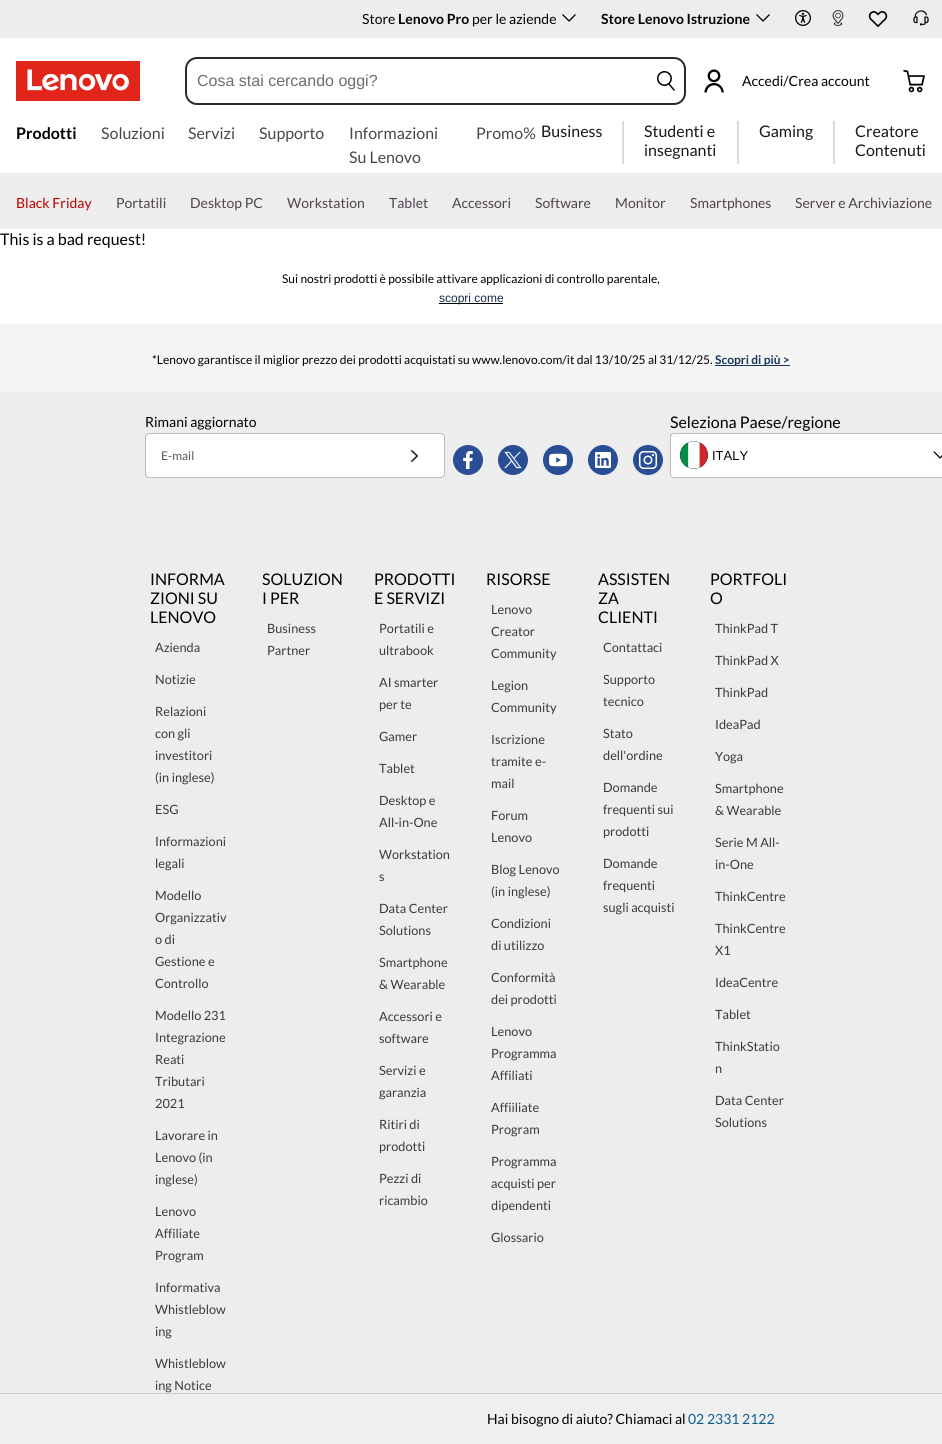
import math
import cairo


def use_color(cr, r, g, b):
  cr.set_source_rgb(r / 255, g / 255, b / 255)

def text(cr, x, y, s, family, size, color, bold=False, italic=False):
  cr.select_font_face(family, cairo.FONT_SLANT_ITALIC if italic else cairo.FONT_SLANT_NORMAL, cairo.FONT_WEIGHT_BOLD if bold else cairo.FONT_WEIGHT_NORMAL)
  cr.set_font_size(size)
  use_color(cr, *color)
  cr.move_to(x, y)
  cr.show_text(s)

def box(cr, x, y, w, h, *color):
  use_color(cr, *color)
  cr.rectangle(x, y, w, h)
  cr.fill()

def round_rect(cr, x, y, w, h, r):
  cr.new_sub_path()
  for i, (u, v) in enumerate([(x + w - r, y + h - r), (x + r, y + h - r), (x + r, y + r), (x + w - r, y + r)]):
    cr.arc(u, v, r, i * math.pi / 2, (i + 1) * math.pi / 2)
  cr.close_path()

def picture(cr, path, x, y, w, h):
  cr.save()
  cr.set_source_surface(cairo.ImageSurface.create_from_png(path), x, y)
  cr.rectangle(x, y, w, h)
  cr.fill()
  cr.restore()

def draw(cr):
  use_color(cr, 255, 255, 255)
  cr.paint()
  box(cr, 0, 0, 942, 38, 237, 237, 237)
  picture(cr, "img_01.png", 562, 14, 14, 8)
  picture(cr, "img_01.png", 756, 14, 14, 8)
  picture(cr, "img_02.png", 795, 10, 16, 16)
  picture(cr, "img_03.png", 832, 10, 12, 16)
  picture(cr, "img_04.png", 868, 11, 20, 17)
  picture(cr, "img_05.png", 913, 10, 16, 16)
  picture(cr, "img_06.png", 16, 61, 124, 40)
  round_rect(cr, 186, 58, 499, 46, 11)
  use_color(cr, 42, 42, 42)
  cr.stroke()
  picture(cr, "img_07.png", 657, 71, 18, 20)
  picture(cr, "img_08.png", 704, 69, 20, 24)
  picture(cr, "img_09.png", 903, 70, 22, 23)
  box(cr, 622, 121, 2, 43, 219, 219, 219)
  box(cr, 737, 121, 2, 43, 219, 219, 219)
  box(cr, 833, 121, 2, 43, 219, 219, 219)
  box(cr, 0, 173, 942, 56, 237, 237, 237)
  box(cr, 439, 303, 64, 1, 0, 0, 0)
  box(cr, 0, 324, 942, 68, 245, 245, 245)
  box(cr, 715, 365, 75, 1, 23, 54, 93)
  box(cr, 0, 392, 942, 1001, 237, 237, 237)
  use_color(cr, 255, 255, 255)
  round_rect(cr, 145.5, 433.5, 299, 44, 3.5)
  cr.fill_preserve()
  use_color(cr, 188, 188, 188)
  cr.set_line_width(1)
  cr.stroke()
  picture(cr, "img_10.png", 411, 450, 7, 12)
  picture(cr, "img_11.png", 453, 445, 30, 30)
  picture(cr, "img_12.png", 498, 445, 30, 30)
  picture(cr, "img_13.png", 543, 445, 30, 30)
  picture(cr, "img_14.png", 588, 445, 30, 30)
  picture(cr, "img_15.png", 633, 445, 30, 30)
  use_color(cr, 255, 255, 255)
  round_rect(cr, 670.5, 433.5, 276, 44, 3.5)
  cr.fill_preserve()
  use_color(cr, 188, 188, 188)
  cr.stroke()
  picture(cr, "img_16.png", 680, 441, 28, 28)
  picture(cr, "img_17.png", 933, 451, 9, 8)
  box(cr, 0, 1394, 942, 50, 239, 239, 239)
  box(cr, 0, 1393, 942, 1, 204, 204, 204)
  text(cr, 362, 24, "Store", "Lato", 14, (0, 0, 0))
  text(cr, 398, 24, "Lenovo Pro", "Lato", 14, (0, 0, 0), bold=True)
  text(cr, 472, 24, "per le aziende", "Lato", 14, (0, 0, 0))
  text(cr, 601, 24, "Store Lenovo Istruzione", "Lato", 14, (0, 0, 0), bold=True)
  text(cr, 197, 86, "Cosa stai cercando oggi?", "Liberation Sans", 16, (111, 109, 110))
  text(cr, 742, 86, "Accedi/Crea account", "Lato", 14, (0, 0, 0))
  text(cr, 16, 139, "Prodotti", "Lato", 16, (0, 0, 0), bold=True)
  text(cr, 101, 139, "Soluzioni", "Lato", 16, (78, 68, 78))
  text(cr, 188, 139, "Servizi", "Lato", 16, (78, 68, 78))
  text(cr, 259, 139, "Supporto", "Lato", 16, (78, 68, 78))
  text(cr, 349, 139, "Informazioni", "Lato", 16, (78, 68, 78))
  text(cr, 349, 163, "Su Lenovo", "Lato", 16, (78, 68, 78))
  text(cr, 476, 139, "Promo%", "Lato", 16, (78, 68, 78))
  text(cr, 541, 137, "Business", "Lato", 16, (23, 23, 23))
  text(cr, 644, 137, "Studenti e", "Lato", 16, (23, 23, 23))
  text(cr, 644, 156, "insegnanti", "Lato", 16, (23, 23, 23))
  text(cr, 759, 137, "Gaming", "Lato", 16, (23, 23, 23))
  text(cr, 855, 137, "Creatore", "Lato", 16, (23, 23, 23))
  text(cr, 855, 156, "Contenuti", "Lato", 16, (23, 23, 23))
  text(cr, 16, 208, "Black Friday", "Lato", 14, (192, 0, 0))
  text(cr, 116, 208, "Portatili", "Lato", 14, (78, 68, 78))
  text(cr, 190, 208, "Desktop PC", "Lato", 14, (78, 68, 78))
  text(cr, 287, 208, "Workstation", "Lato", 14, (78, 68, 78))
  text(cr, 389, 208, "Tablet", "Lato", 14, (78, 68, 78))
  text(cr, 452, 208, "Accessori", "Lato", 14, (78, 68, 78))
  text(cr, 535, 208, "Software", "Lato", 14, (78, 68, 78))
  text(cr, 615, 208, "Monitor", "Lato", 14, (78, 68, 78))
  text(cr, 690, 208, "Smartphones", "Lato", 14, (78, 68, 78))
  text(cr, 795, 208, "Server e Archiviazione", "Lato", 14, (78, 68, 78))
  text(cr, 0, 245, "This is a bad request!", "Lato", 16, (0, 0, 0))
  text(cr, 282, 283, "Sui nostri prodotti è possibile attivare applicazioni di controllo parentale,", "Lato", 12, (0, 0, 0))
  text(cr, 439, 302, "scopri come", "Liberation Sans", 12, (23, 43, 77))
  text(cr, 152, 364, "*Lenovo garantisce il miglior prezzo dei prodotti acquistati su www.lenovo.com/it dal 13/10/25 al 31/12/25.", "Lato", 12, (0, 0, 0))
  text(cr, 715, 364, "Scopri di più >", "Lato", 12, (23, 54, 93), bold=True)
  text(cr, 145, 427, "Rimani aggiornato", "Lato", 14, (0, 0, 0))
  text(cr, 161, 460, "E-mail", "Lato", 12, (85, 85, 85))
  text(cr, 670, 428, "Seleziona Paese/regione", "Lato", 16, (0, 0, 0))
  text(cr, 712, 460, "ITALY", "Liberation Sans", 13, (0, 0, 0))
  text(cr, 150, 585, "INFORMA", "Lato", 16, (0, 0, 0))
  text(cr, 150, 604, "ZIONI SU", "Lato", 16, (0, 0, 0))
  text(cr, 150, 623, "LENOVO", "Lato", 16, (0, 0, 0))
  text(cr, 155, 652, "Azienda", "Lato", 12.75, (58, 58, 58))
  text(cr, 155, 684, "Notizie", "Lato", 12.75, (58, 58, 58))
  text(cr, 155, 716, "Relazioni", "Lato", 12.75, (58, 58, 58))
  text(cr, 155, 738, "con gli", "Lato", 12.75, (58, 58, 58))
  text(cr, 155, 760, "investitori", "Lato", 12.75, (58, 58, 58))
  text(cr, 155, 782, "(in inglese)", "Lato", 12.75, (58, 58, 58))
  text(cr, 155, 814, "ESG", "Lato", 12.75, (58, 58, 58))
  text(cr, 155, 846, "Informazioni", "Lato", 12.75, (58, 58, 58))
  text(cr, 155, 868, "legali", "Lato", 12.75, (58, 58, 58))
  text(cr, 155, 900, "Modello", "Lato", 12.75, (58, 58, 58))
  text(cr, 155, 922, "Organizzativ", "Lato", 12.75, (58, 58, 58))
  text(cr, 155, 944, "o di", "Lato", 12.75, (58, 58, 58))
  text(cr, 155, 966, "Gestione e", "Lato", 12.75, (58, 58, 58))
  text(cr, 155, 988, "Controllo", "Lato", 12.75, (58, 58, 58))
  text(cr, 155, 1020, "Modello 231", "Lato", 12.75, (58, 58, 58))
  text(cr, 155, 1042, "Integrazione", "Lato", 12.75, (58, 58, 58))
  text(cr, 155, 1064, "Reati", "Lato", 12.75, (58, 58, 58))
  text(cr, 155, 1086, "Tributari", "Lato", 12.75, (58, 58, 58))
  text(cr, 155, 1108, "2021", "Lato", 12.75, (58, 58, 58))
  text(cr, 155, 1140, "Lavorare in", "Lato", 12.75, (58, 58, 58))
  text(cr, 155, 1162, "Lenovo (in", "Lato", 12.75, (58, 58, 58))
  text(cr, 155, 1184, "inglese)", "Lato", 12.75, (58, 58, 58))
  text(cr, 155, 1216, "Lenovo", "Lato", 12.75, (58, 58, 58))
  text(cr, 155, 1238, "Affiliate", "Lato", 12.75, (58, 58, 58))
  text(cr, 155, 1260, "Program", "Lato", 12.75, (58, 58, 58))
  text(cr, 155, 1292, "Informativa", "Lato", 12.75, (58, 58, 58))
  text(cr, 155, 1314, "Whistleblow", "Lato", 12.75, (58, 58, 58))
  text(cr, 155, 1336, "ing", "Lato", 12.75, (58, 58, 58))
  text(cr, 155, 1368, "Whistleblow", "Lato", 12.75, (58, 58, 58))
  text(cr, 155, 1390, "ing Notice", "Lato", 12.75, (58, 58, 58))
  text(cr, 262, 585, "SOLUZION", "Lato", 16, (0, 0, 0))
  text(cr, 262, 604, "I PER", "Lato", 16, (0, 0, 0))
  text(cr, 267, 633, "Business", "Lato", 12.75, (58, 58, 58))
  text(cr, 267, 655, "Partner", "Lato", 12.75, (58, 58, 58))
  text(cr, 374, 585, "PRODOTTI", "Lato", 16, (0, 0, 0))
  text(cr, 374, 604, "E SERVIZI", "Lato", 16, (0, 0, 0))
  text(cr, 379, 633, "Portatili e", "Lato", 12.75, (58, 58, 58))
  text(cr, 379, 655, "ultrabook", "Lato", 12.75, (58, 58, 58))
  text(cr, 379, 687, "AI smarter", "Lato", 12.75, (58, 58, 58))
  text(cr, 379, 709, "per te", "Lato", 12.75, (58, 58, 58))
  text(cr, 379, 741, "Gamer", "Lato", 12.75, (58, 58, 58))
  text(cr, 379, 773, "Tablet", "Lato", 12.75, (58, 58, 58))
  text(cr, 379, 805, "Desktop e", "Lato", 12.75, (58, 58, 58))
  text(cr, 379, 827, "All-in-One", "Lato", 12.75, (58, 58, 58))
  text(cr, 379, 859, "Workstation", "Lato", 12.75, (58, 58, 58))
  text(cr, 379, 881, "s", "Lato", 12.75, (58, 58, 58))
  text(cr, 379, 913, "Data Center", "Lato", 12.75, (58, 58, 58))
  text(cr, 379, 935, "Solutions", "Lato", 12.75, (58, 58, 58))
  text(cr, 379, 967, "Smartphone", "Lato", 12.75, (58, 58, 58))
  text(cr, 379, 989, "& Wearable", "Lato", 12.75, (58, 58, 58))
  text(cr, 379, 1021, "Accessori e", "Lato", 12.75, (58, 58, 58))
  text(cr, 379, 1043, "software", "Lato", 12.75, (58, 58, 58))
  text(cr, 379, 1075, "Servizi e", "Lato", 12.75, (58, 58, 58))
  text(cr, 379, 1097, "garanzia", "Lato", 12.75, (58, 58, 58))
  text(cr, 379, 1129, "Ritiri di", "Lato", 12.75, (58, 58, 58))
  text(cr, 379, 1151, "prodotti", "Lato", 12.75, (58, 58, 58))
  text(cr, 379, 1183, "Pezzi di", "Lato", 12.75, (58, 58, 58))
  text(cr, 379, 1205, "ricambio", "Lato", 12.75, (58, 58, 58))
  text(cr, 486, 585, "RISORSE", "Lato", 16, (0, 0, 0))
  text(cr, 491, 614, "Lenovo", "Lato", 12.75, (58, 58, 58))
  text(cr, 491, 636, "Creator", "Lato", 12.75, (58, 58, 58))
  text(cr, 491, 658, "Community", "Lato", 12.75, (58, 58, 58))
  text(cr, 491, 690, "Legion", "Lato", 12.75, (58, 58, 58))
  text(cr, 491, 712, "Community", "Lato", 12.75, (58, 58, 58))
  text(cr, 491, 744, "Iscrizione", "Lato", 12.75, (58, 58, 58))
  text(cr, 491, 766, "tramite e-", "Lato", 12.75, (58, 58, 58))
  text(cr, 491, 788, "mail", "Lato", 12.75, (58, 58, 58))
  text(cr, 491, 820, "Forum", "Lato", 12.75, (58, 58, 58))
  text(cr, 491, 842, "Lenovo", "Lato", 12.75, (58, 58, 58))
  text(cr, 491, 874, "Blog Lenovo", "Lato", 12.75, (58, 58, 58))
  text(cr, 491, 896, "(in inglese)", "Lato", 12.75, (58, 58, 58))
  text(cr, 491, 928, "Condizioni", "Lato", 12.75, (58, 58, 58))
  text(cr, 491, 950, "di utilizzo", "Lato", 12.75, (58, 58, 58))
  text(cr, 491, 982, "Conformità", "Lato", 12.75, (58, 58, 58))
  text(cr, 491, 1004, "dei prodotti", "Lato", 12.75, (58, 58, 58))
  text(cr, 491, 1036, "Lenovo", "Lato", 12.75, (58, 58, 58))
  text(cr, 491, 1058, "Programma", "Lato", 12.75, (58, 58, 58))
  text(cr, 491, 1080, "Affiliati", "Lato", 12.75, (58, 58, 58))
  text(cr, 491, 1112, "Affiiliate", "Lato", 12.75, (58, 58, 58))
  text(cr, 491, 1134, "Program", "Lato", 12.75, (58, 58, 58))
  text(cr, 491, 1166, "Programma", "Lato", 12.75, (58, 58, 58))
  text(cr, 491, 1188, "acquisti per", "Lato", 12.75, (58, 58, 58))
  text(cr, 491, 1210, "dipendenti", "Lato", 12.75, (58, 58, 58))
  text(cr, 491, 1242, "Glossario", "Lato", 12.75, (58, 58, 58))
  text(cr, 598, 585, "ASSISTEN", "Lato", 16, (0, 0, 0))
  text(cr, 598, 604, "ZA", "Lato", 16, (0, 0, 0))
  text(cr, 598, 623, "CLIENTI", "Lato", 16, (0, 0, 0))
  text(cr, 603, 652, "Contattaci", "Lato", 12.75, (58, 58, 58))
  text(cr, 603, 684, "Supporto", "Lato", 12.75, (58, 58, 58))
  text(cr, 603, 706, "tecnico", "Lato", 12.75, (58, 58, 58))
  text(cr, 603, 738, "Stato", "Lato", 12.75, (58, 58, 58))
  text(cr, 603, 760, "dell'ordine", "Lato", 12.75, (58, 58, 58))
  text(cr, 603, 792, "Domande", "Lato", 12.75, (58, 58, 58))
  text(cr, 603, 814, "frequenti sui", "Lato", 12.75, (58, 58, 58))
  text(cr, 603, 836, "prodotti", "Lato", 12.75, (58, 58, 58))
  text(cr, 603, 868, "Domande", "Lato", 12.75, (58, 58, 58))
  text(cr, 603, 890, "frequenti", "Lato", 12.75, (58, 58, 58))
  text(cr, 603, 912, "sugli acquisti", "Lato", 12.75, (58, 58, 58))
  text(cr, 710, 585, "PORTFOLI", "Lato", 16, (0, 0, 0))
  text(cr, 710, 604, "O", "Lato", 16, (0, 0, 0))
  text(cr, 715, 633, "ThinkPad T", "Lato", 12.75, (58, 58, 58))
  text(cr, 715, 665, "ThinkPad X", "Lato", 12.75, (58, 58, 58))
  text(cr, 715, 697, "ThinkPad", "Lato", 12.75, (58, 58, 58))
  text(cr, 715, 729, "IdeaPad", "Lato", 12.75, (58, 58, 58))
  text(cr, 715, 761, "Yoga", "Lato", 12.75, (58, 58, 58))
  text(cr, 715, 793, "Smartphone", "Lato", 12.75, (58, 58, 58))
  text(cr, 715, 815, "& Wearable", "Lato", 12.75, (58, 58, 58))
  text(cr, 715, 847, "Serie M All-", "Lato", 12.75, (58, 58, 58))
  text(cr, 715, 869, "in-One", "Lato", 12.75, (58, 58, 58))
  text(cr, 715, 901, "ThinkCentre", "Lato", 12.75, (58, 58, 58))
  text(cr, 715, 933, "ThinkCentre", "Lato", 12.75, (58, 58, 58))
  text(cr, 715, 955, "X1", "Lato", 12.75, (58, 58, 58))
  text(cr, 715, 987, "IdeaCentre", "Lato", 12.75, (58, 58, 58))
  text(cr, 715, 1019, "Tablet", "Lato", 12.75, (58, 58, 58))
  text(cr, 715, 1051, "ThinkStatio", "Lato", 12.75, (58, 58, 58))
  text(cr, 715, 1073, "n", "Lato", 12.75, (58, 58, 58))
  text(cr, 715, 1105, "Data Center", "Lato", 12.75, (58, 58, 58))
  text(cr, 715, 1127, "Solutions", "Lato", 12.75, (58, 58, 58))
  text(cr, 487, 1424, "Hai bisogno di aiuto? Chiamaci al", "Lato", 14, (0, 0, 0))
  text(cr, 688, 1424, "02 2331 2122", "Lato", 14, (13, 92, 145))


surface = cairo.ImageSurface(cairo.FORMAT_RGB24, 942, 1444)
cr = cairo.Context(surface)
options = cairo.FontOptions()
options.set_hint_metrics(cairo.HINT_METRICS_OFF)
options.set_hint_style(cairo.HINT_STYLE_NONE)
cr.set_font_options(options)
cr.set_miter_limit(4)
draw(cr)
surface.write_to_png("out.png")
